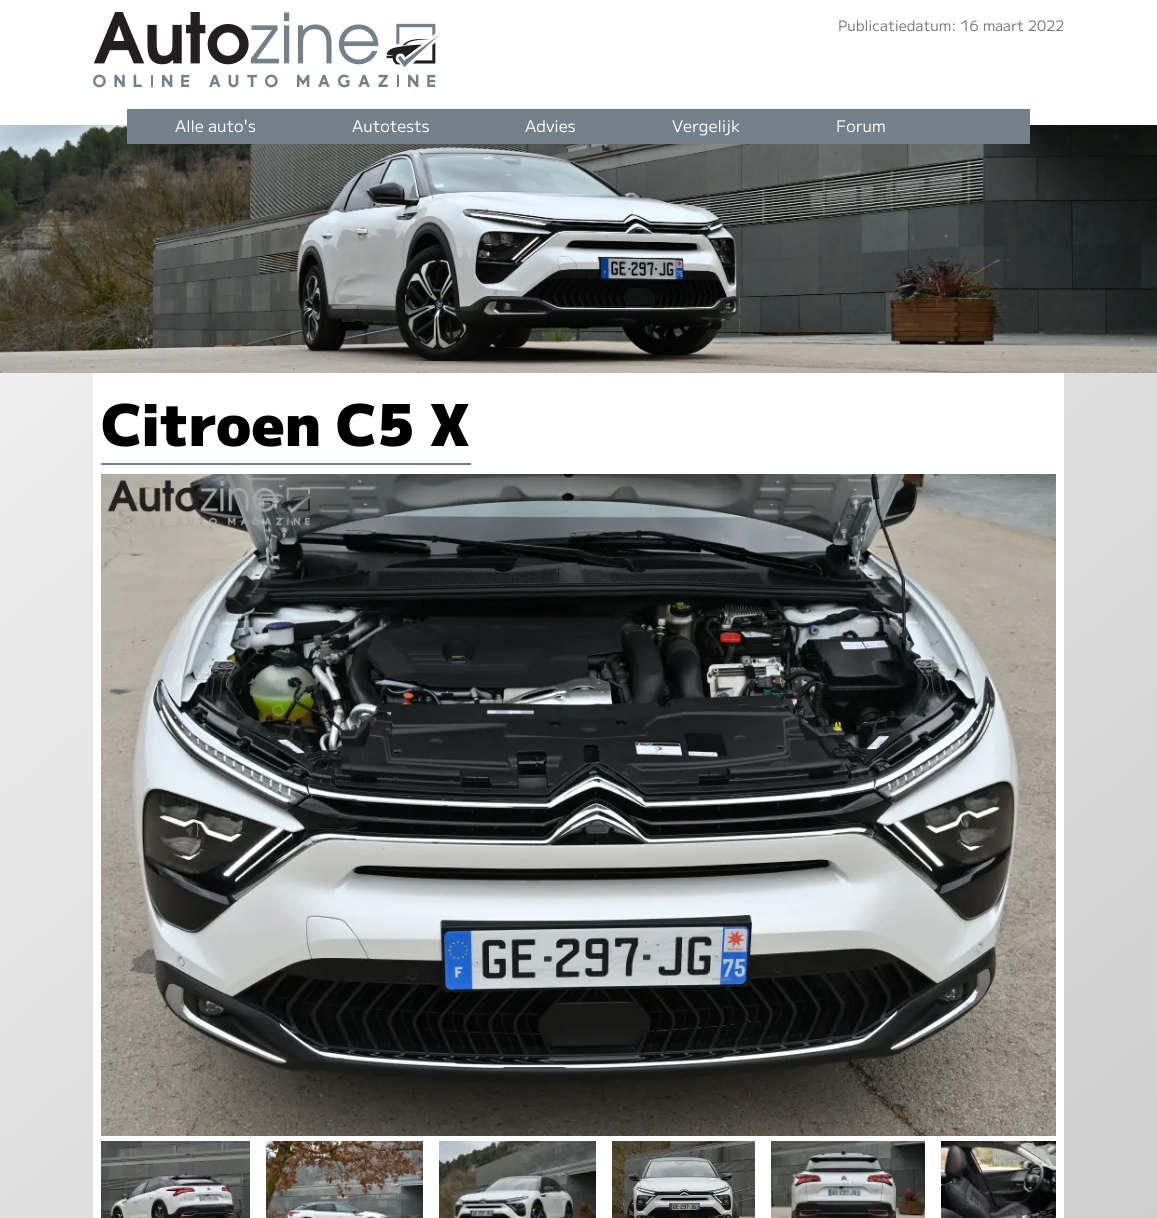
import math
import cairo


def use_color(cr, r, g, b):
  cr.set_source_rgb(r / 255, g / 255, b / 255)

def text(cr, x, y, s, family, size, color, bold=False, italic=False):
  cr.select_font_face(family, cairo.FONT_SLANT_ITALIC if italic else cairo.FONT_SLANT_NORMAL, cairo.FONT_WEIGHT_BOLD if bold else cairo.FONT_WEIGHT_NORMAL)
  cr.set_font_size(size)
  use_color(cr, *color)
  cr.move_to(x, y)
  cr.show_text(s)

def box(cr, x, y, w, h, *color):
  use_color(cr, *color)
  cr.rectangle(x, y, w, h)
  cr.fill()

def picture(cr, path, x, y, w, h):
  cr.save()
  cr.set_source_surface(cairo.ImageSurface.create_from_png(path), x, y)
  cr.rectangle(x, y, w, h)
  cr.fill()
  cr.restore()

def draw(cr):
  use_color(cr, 255, 255, 255)
  cr.paint()
  picture(cr, "img_01.png", 93, 12, 347, 76)
  picture(cr, "img_02.png", 0, 125, 1157, 248)
  box(cr, 127, 109, 903, 35, 117, 129, 138)
  gradient = cairo.LinearGradient(97, 291, 1060, 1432)
  gradient.add_color_stop_rgba(0, 0.933, 0.933, 0.933, 1)
  gradient.add_color_stop_rgba(1, 0.8, 0.8, 0.8, 1)
  cr.set_source(gradient)
  cr.rectangle(0, 373, 1157, 845)
  cr.fill()
  box(cr, 93, 373, 971, 845, 255, 255, 255)
  box(cr, 101, 463, 370, 2, 117, 129, 138)
  picture(cr, "img_03.png", 101, 474, 955, 662)
  picture(cr, "img_04.png", 101, 1141, 149, 77)
  picture(cr, "img_05.png", 266, 1141, 157, 77)
  picture(cr, "img_06.png", 439, 1141, 157, 77)
  picture(cr, "img_07.png", 612, 1141, 143, 77)
  picture(cr, "img_08.png", 771, 1141, 154, 77)
  picture(cr, "img_09.png", 941, 1141, 115, 77)
  text(cr, 838, 31, "Publicatiedatum: 16 maart 2022", "M PLUS 1", 14.4, (118, 118, 118))
  text(cr, 175, 132, "Alle auto's", "M PLUS 1", 16, (255, 255, 255))
  text(cr, 352, 132, "Autotests", "M PLUS 1", 16, (255, 255, 255))
  text(cr, 525, 132, "Advies", "M PLUS 1", 16, (255, 255, 255))
  text(cr, 672, 132, "Vergelijk", "M PLUS 1", 16, (255, 255, 255))
  text(cr, 836, 132, "Forum", "M PLUS 1", 16, (255, 255, 255))
  text(cr, 101, 446, "Citroen C5 X", "M PLUS 1 Black", 57.5, (0, 0, 0))


surface = cairo.ImageSurface(cairo.FORMAT_RGB24, 1157, 1218)
cr = cairo.Context(surface)
options = cairo.FontOptions()
options.set_hint_metrics(cairo.HINT_METRICS_OFF)
options.set_hint_style(cairo.HINT_STYLE_NONE)
cr.set_font_options(options)
cr.set_miter_limit(4)
draw(cr)
surface.write_to_png("out.png")
